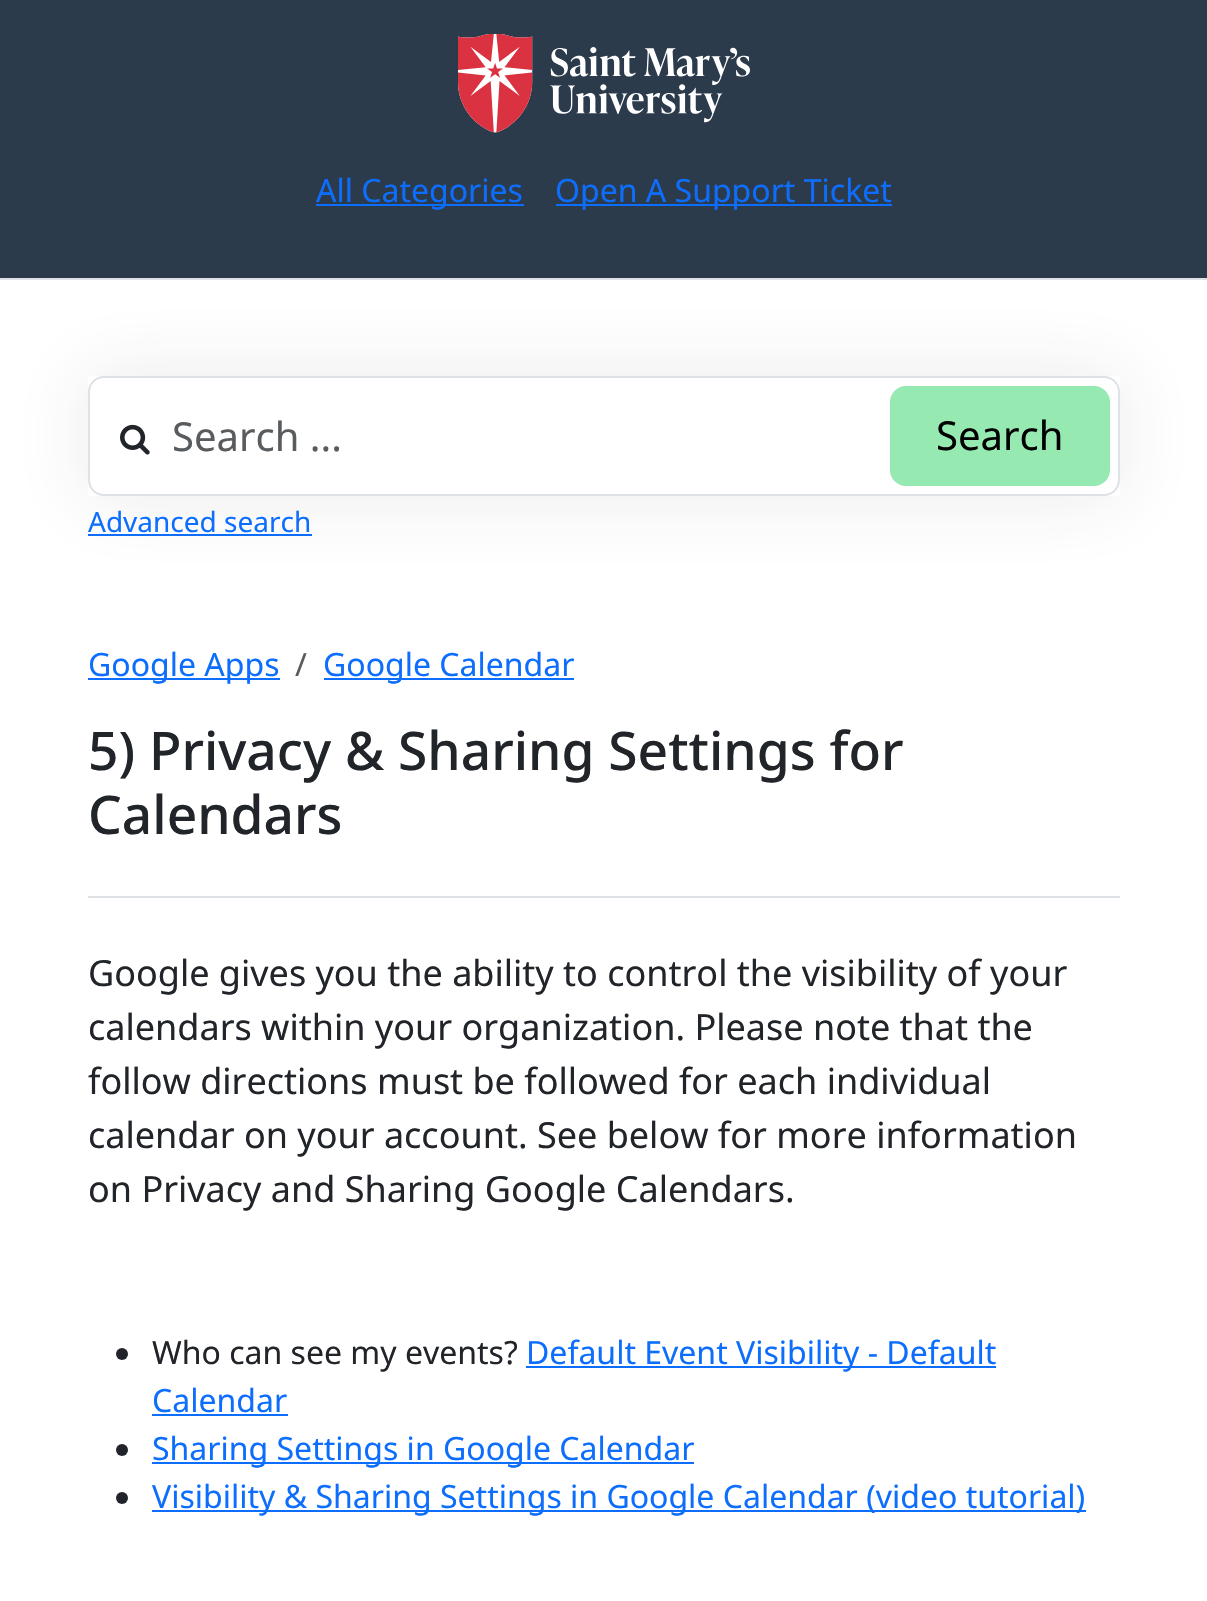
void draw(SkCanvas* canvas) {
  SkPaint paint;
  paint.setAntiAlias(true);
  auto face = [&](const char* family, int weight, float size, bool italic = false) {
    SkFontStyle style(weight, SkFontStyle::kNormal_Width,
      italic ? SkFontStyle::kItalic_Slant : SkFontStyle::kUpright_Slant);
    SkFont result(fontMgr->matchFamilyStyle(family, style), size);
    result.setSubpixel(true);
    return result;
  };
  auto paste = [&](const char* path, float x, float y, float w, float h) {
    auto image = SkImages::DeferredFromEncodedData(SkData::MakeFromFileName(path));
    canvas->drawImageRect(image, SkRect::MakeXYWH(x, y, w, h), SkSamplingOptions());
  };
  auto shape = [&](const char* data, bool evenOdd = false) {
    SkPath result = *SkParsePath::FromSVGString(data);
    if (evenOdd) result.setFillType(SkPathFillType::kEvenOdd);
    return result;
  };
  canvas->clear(0xffffffff);
  paint.setColor(0xff2b3b4c);
  canvas->drawRect(SkRect::MakeXYWH(0, 0, 1207, 278), paint);
  paint.setColor(0xffdee2e6);
  canvas->drawRect(SkRect::MakeXYWH(0, 278, 1207, 2), paint);
  paste("img/1.png", 458, 33, 292, 100);
  {
    const struct { float x, y, w, h; SkColor color; } items[] = {
      {316, 204, 208, 2, 0xff0d6efd},
      {556, 204, 336, 2, 0xff0d6efd},
      {88, 534, 224, 2, 0xff0d6efd},
    };
    for (auto [x, y, w, h, color] : items) {
      paint.setColor(color);
      canvas->drawRect(SkRect::MakeXYWH(x, y, w, h), paint);
    }
  }
  canvas->save();
  canvas->clipPath(shape("M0 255H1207V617H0ZM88 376H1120V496H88Z", true), true);
  paint.setColor(0x1a333333);
  paint.setMaskFilter(SkMaskFilter::MakeBlur(kNormal_SkBlurStyle, 40));
  canvas->drawRect(SkRect::MakeXYWH(88, 376, 1032, 120), paint);
  paint.setMaskFilter(nullptr);
  canvas->restore();
  paint.setStroke(true);
  paint.setStrokeWidth(2);
  paint.setColor(0xffdee2e6);
  canvas->drawRoundRect(SkRect::MakeXYWH(89, 377, 1030, 118), 15, 15, paint);
  paste("img/2.png", 120, 424, 30, 31);
  paint.setStroke(false);
  paint.setColor(0xff96e9b0);
  canvas->drawRoundRect(SkRect::MakeXYWH(891, 387, 218, 98), 15, 15, paint);
  paint.setStroke(true);
  canvas->drawRoundRect(SkRect::MakeXYWH(891, 387, 218, 98), 15, 15, paint);
  paint.setStroke(false);
  {
    const struct { float x, y, w, h; SkColor color; } items[] = {
      {88, 678, 192, 2, 0xff0d6efd},
      {324, 678, 250, 2, 0xff0d6efd},
      {88, 896, 1032, 2, 0xffdee2e6},
    };
    for (auto [x, y, w, h, color] : items) {
      paint.setColor(color);
      canvas->drawRect(SkRect::MakeXYWH(x, y, w, h), paint);
    }
  }
  paint.setColor(0xff212529);
  canvas->drawCircle(122, 1354, 6, paint);
  paint.setColor(0xff0d6efd);
  canvas->drawRect(SkRect::MakeXYWH(526, 1366, 470, 2), paint);
  canvas->drawRect(SkRect::MakeXYWH(152, 1414, 136, 2), paint);
  paint.setColor(0xff212529);
  canvas->drawCircle(122, 1450, 6, paint);
  paint.setColor(0xff0d6efd);
  canvas->drawRect(SkRect::MakeXYWH(152, 1462, 542, 2), paint);
  paint.setColor(0xff212529);
  canvas->drawCircle(122, 1498, 6, paint);
  paint.setColor(0xff0d6efd);
  canvas->drawRect(SkRect::MakeXYWH(152, 1510, 934, 2), paint);
  auto f0 = face("Noto Sans", 400, 32);
  canvas->drawString("All Categories", 316, 202, f0, paint);
  canvas->drawString("Open A Support Ticket", 555, 202, f0, paint);
  auto f1 = face("Noto Sans", 400, 40);
  paint.setColor(0xff595c5f);
  canvas->drawString("Search ...", 172, 451, f1, paint);
  paint.setColor(0xff000000);
  canvas->drawString("Search", 936, 450, f1, paint);
  auto f2 = face("Noto Sans", 400, 28);
  paint.setColor(0xff0d6efd);
  canvas->drawString("Advanced search", 88, 532, f2, paint);
  canvas->drawString("Google Apps", 88, 676, f0, paint);
  paint.setColor(0xff595c5f);
  canvas->drawString("/", 295, 676, f0, paint);
  paint.setColor(0xff0d6efd);
  canvas->drawString("Google Calendar", 323, 676, f0, paint);
  auto f3 = face("Noto Sans", 500, 53.25f);
  paint.setColor(0xff212529);
  canvas->drawString("5) Privacy & Sharing Settings for", 88, 770, f3, paint);
  canvas->drawString("Calendars", 88, 834, f3, paint);
  auto f4 = face("Noto Sans", 400, 36);
  {
    const struct { const char* s; float x, y; } items[] = {
      {"Google gives you the ability to control the visibility of your", 88, 986},
      {"calendars within your organization. Please note that the", 88, 1040},
      {"follow directions must be followed for each individual", 88, 1094},
      {"calendar on your account. See below for more information", 88, 1148},
      {"on Privacy and Sharing Google Calendars.", 88, 1202},
    };
    for (auto [s, x, y] : items) {
      canvas->drawString(s, x, y, f4, paint);
    }
  }
  canvas->drawString("Who can see my events?", 152, 1364, f0, paint);
  paint.setColor(0xff0d6efd);
  {
    const struct { const char* s; float x, y; } items[] = {
      {"Default Event Visibility - Default", 526, 1364},
      {"Calendar", 152, 1412},
      {"Sharing Settings in Google Calendar", 152, 1460},
      {"Visibility & Sharing Settings in Google Calendar (video tutorial)", 152, 1508},
    };
    for (auto [s, x, y] : items) {
      canvas->drawString(s, x, y, f0, paint);
    }
  }
}
